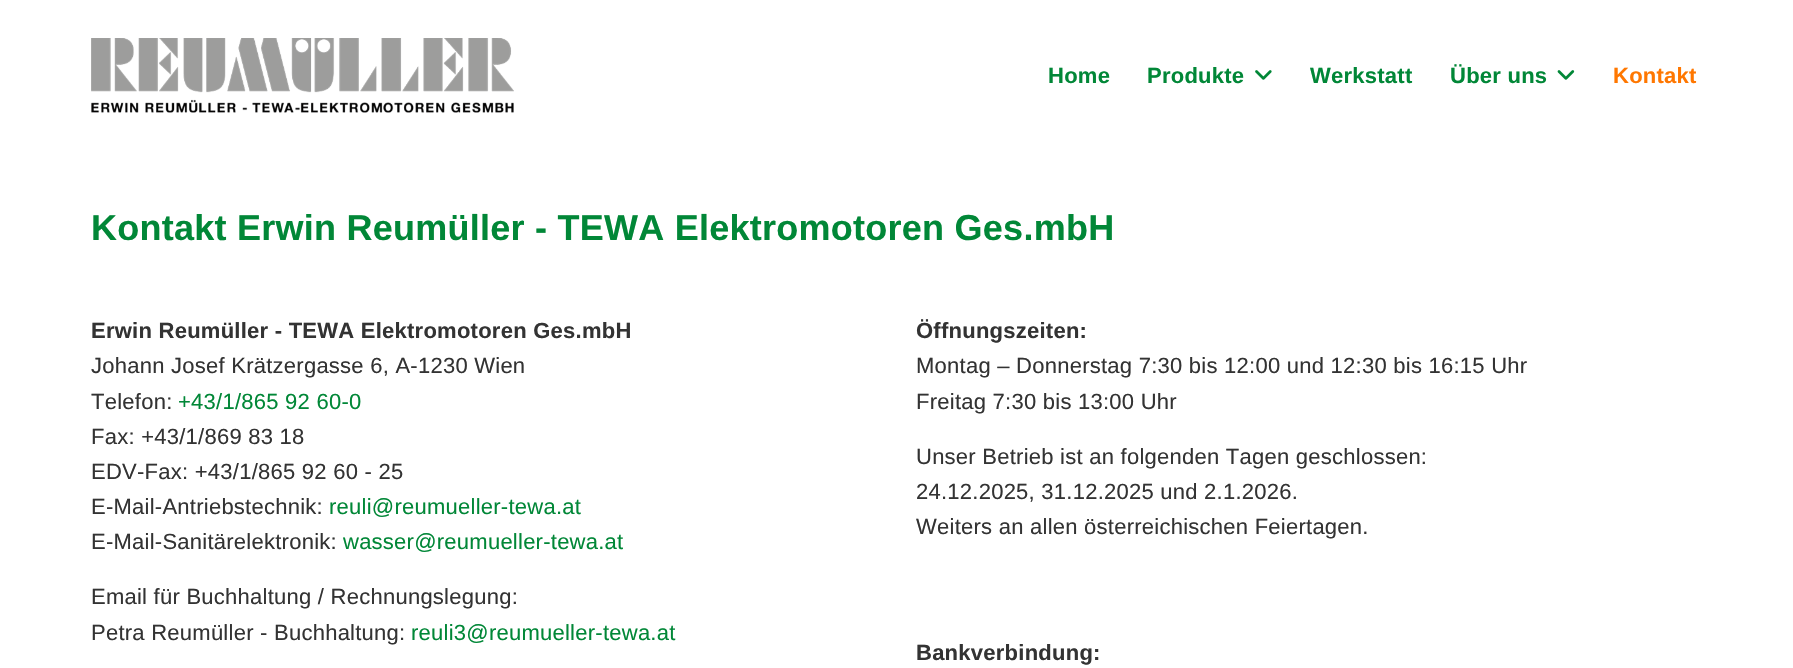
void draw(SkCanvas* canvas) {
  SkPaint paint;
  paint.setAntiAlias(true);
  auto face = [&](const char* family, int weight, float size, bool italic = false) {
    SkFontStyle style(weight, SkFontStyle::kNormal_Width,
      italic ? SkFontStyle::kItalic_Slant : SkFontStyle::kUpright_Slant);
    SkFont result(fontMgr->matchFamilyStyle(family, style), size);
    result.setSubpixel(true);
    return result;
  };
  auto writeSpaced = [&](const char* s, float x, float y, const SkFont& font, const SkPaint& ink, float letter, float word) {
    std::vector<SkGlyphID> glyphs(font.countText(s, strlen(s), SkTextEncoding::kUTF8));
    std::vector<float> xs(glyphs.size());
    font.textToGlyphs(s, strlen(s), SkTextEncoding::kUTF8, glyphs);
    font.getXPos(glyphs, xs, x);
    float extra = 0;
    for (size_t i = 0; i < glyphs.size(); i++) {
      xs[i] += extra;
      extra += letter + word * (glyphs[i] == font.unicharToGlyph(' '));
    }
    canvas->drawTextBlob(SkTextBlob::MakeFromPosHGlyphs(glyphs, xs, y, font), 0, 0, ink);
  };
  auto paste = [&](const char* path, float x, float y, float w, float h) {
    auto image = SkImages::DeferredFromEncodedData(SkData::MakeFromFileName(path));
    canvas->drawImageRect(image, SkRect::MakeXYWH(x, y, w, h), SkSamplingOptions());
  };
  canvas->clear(0xffffffff);
  paste("img/1.png", 91, 38, 423, 75);
  paste("img/2.png", 1255, 70, 17, 10);
  paste("img/3.png", 1557, 70, 18, 10);
  auto f0 = face("Liberation Sans", 700, 22);
  paint.setColor(0xff018737);
  {
    const struct { const char* s; float x, y; } items[] = {
      {"Home", 1048, 83},
      {"Produkte", 1147, 83},
      {"Werkstatt", 1310, 83},
      {"Über uns", 1450, 83},
    };
    for (auto [s, x, y] : items) {
      writeSpaced(s, x, y, f0, paint, 0.25f, 0);
    }
  }
  paint.setColor(0xffff7700);
  writeSpaced("Kontakt", 1613, 83, f0, paint, 0.25f, 0);
  auto f1 = face("Liberation Sans", 700, 36);
  paint.setColor(0xff018737);
  writeSpaced("Kontakt Erwin Reumüller - TEWA Elektromotoren Ges.mbH", 91, 240, f1, paint, 0.25f, 0);
  paint.setColor(0xff333333);
  writeSpaced("Erwin Reumüller - TEWA Elektromotoren Ges.mbH", 91, 338, f0, paint, 0.25f, 0);
  auto f2 = face("Liberation Sans", 400, 22);
  writeSpaced("Johann Josef Krätzergasse 6, A-1230 Wien", 91, 373, f2, paint, 0.25f, 0);
  writeSpaced("Telefon:", 91, 409, f2, paint, 0.25f, 0);
  paint.setColor(0xff018737);
  writeSpaced("+43/1/865 92 60-0", 178, 409, f2, paint, 0.25f, 0);
  paint.setColor(0xff333333);
  {
    const struct { const char* s; float x, y; } items[] = {
      {"Fax: +43/1/869 83 18", 91, 444},
      {"EDV-Fax: +43/1/865 92 60 - 25", 91, 479},
      {"E-Mail-Antriebstechnik:", 91, 514},
    };
    for (auto [s, x, y] : items) {
      writeSpaced(s, x, y, f2, paint, 0.25f, 0);
    }
  }
  paint.setColor(0xff018737);
  writeSpaced("reuli@reumueller-tewa.at", 329, 514, f2, paint, 0.25f, 0);
  paint.setColor(0xff333333);
  writeSpaced("E-Mail-Sanitärelektronik:", 91, 549, f2, paint, 0.25f, 0);
  paint.setColor(0xff018737);
  writeSpaced("wasser@reumueller-tewa.at", 343, 549, f2, paint, 0.25f, 0);
  paint.setColor(0xff333333);
  writeSpaced("Email für Buchhaltung / Rechnungslegung:", 91, 604, f2, paint, 0.25f, 0);
  writeSpaced("Petra Reumüller - Buchhaltung:", 91, 640, f2, paint, 0.25f, 0);
  paint.setColor(0xff018737);
  writeSpaced("reuli3@reumueller-tewa.at", 411, 640, f2, paint, 0.25f, 0);
  paint.setColor(0xff333333);
  writeSpaced("Öffnungszeiten:", 916, 338, f0, paint, 0.25f, 0);
  {
    const struct { const char* s; float x, y; } items[] = {
      {"Montag – Donnerstag 7:30 bis 12:00 und 12:30 bis 16:15 Uhr", 916, 373},
      {"Freitag 7:30 bis 13:00 Uhr", 916, 409},
      {"Unser Betrieb ist an folgenden Tagen geschlossen:", 916, 464},
      {"24.12.2025, 31.12.2025 und 2.1.2026.", 916, 499},
      {"Weiters an allen österreichischen Feiertagen.", 916, 534},
    };
    for (auto [s, x, y] : items) {
      writeSpaced(s, x, y, f2, paint, 0.25f, 0);
    }
  }
  writeSpaced("Bankverbindung:", 916, 660, f0, paint, 0.25f, 0);
}
